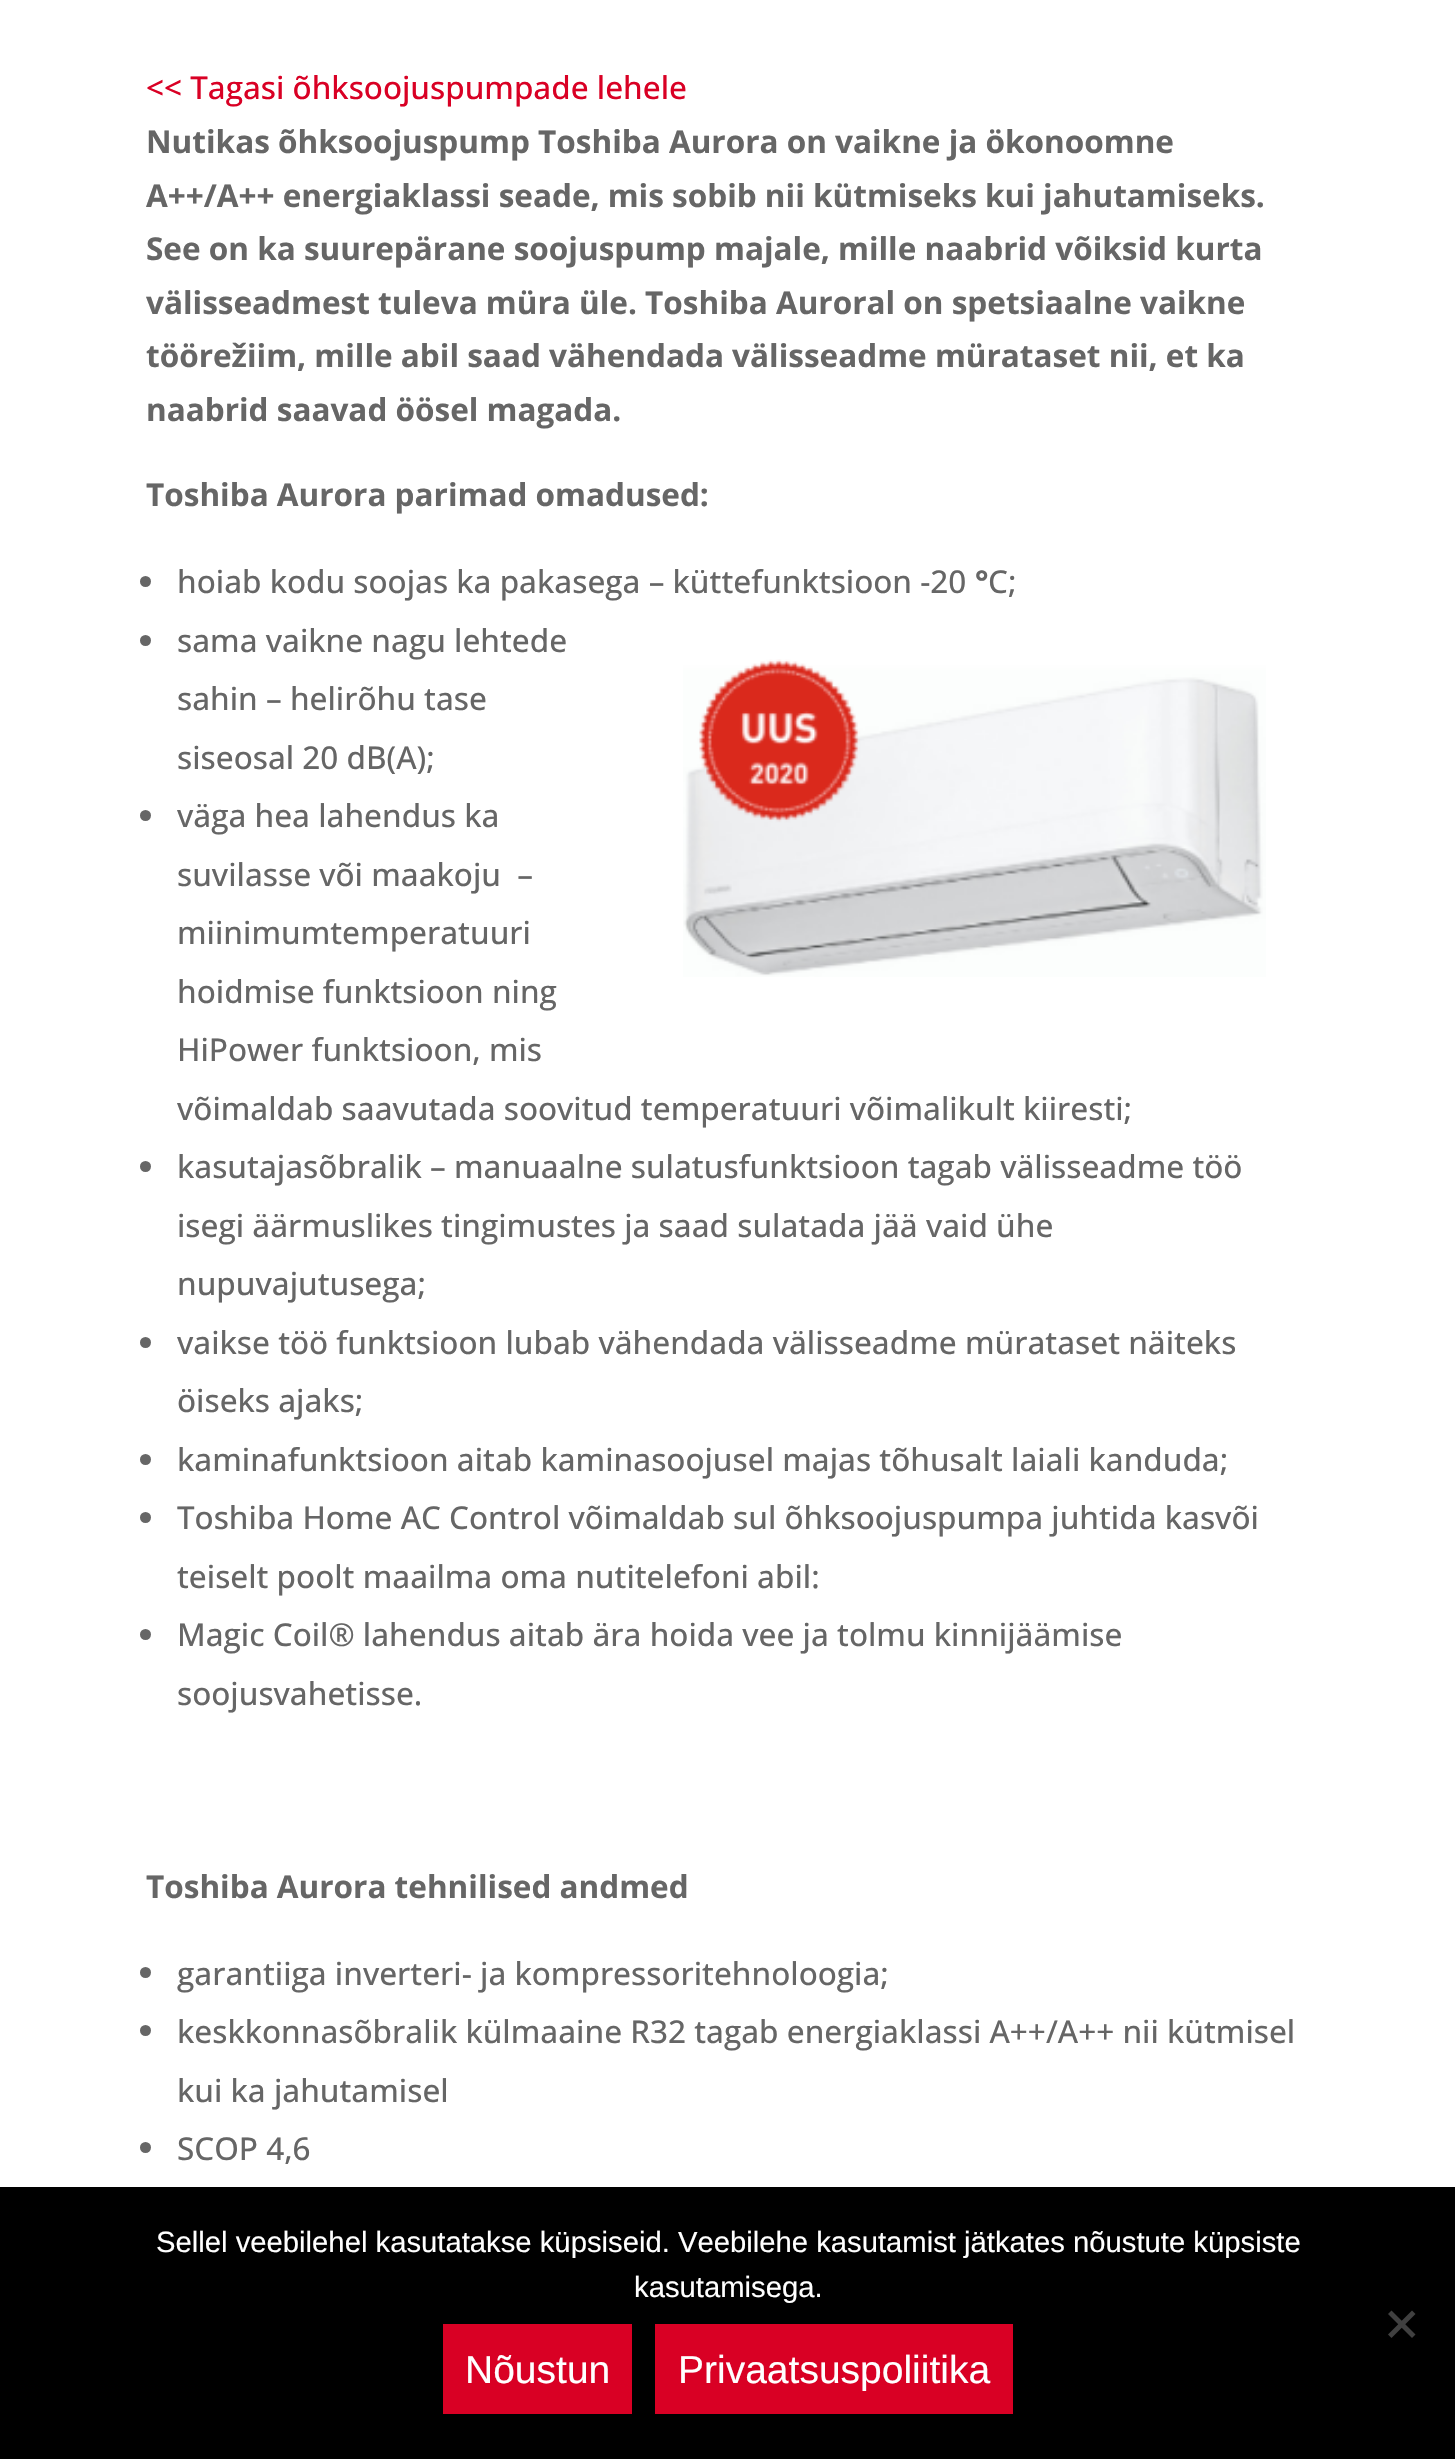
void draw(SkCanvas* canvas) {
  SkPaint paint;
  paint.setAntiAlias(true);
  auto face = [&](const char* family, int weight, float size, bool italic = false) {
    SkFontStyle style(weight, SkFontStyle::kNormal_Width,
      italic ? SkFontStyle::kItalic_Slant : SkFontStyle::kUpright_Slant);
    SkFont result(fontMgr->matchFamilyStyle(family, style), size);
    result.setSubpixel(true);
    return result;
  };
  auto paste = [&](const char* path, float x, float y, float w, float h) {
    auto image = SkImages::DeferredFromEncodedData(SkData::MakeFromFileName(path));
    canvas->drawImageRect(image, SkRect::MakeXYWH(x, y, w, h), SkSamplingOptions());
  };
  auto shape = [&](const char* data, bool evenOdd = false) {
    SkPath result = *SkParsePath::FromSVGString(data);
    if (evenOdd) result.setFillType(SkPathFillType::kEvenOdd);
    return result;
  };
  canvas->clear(0xffffffff);
  paint.setColor(0xff666666);
  canvas->drawCircle(145.5f, 581.5f, 5.5f, paint);
  paste("img/1.png", 683, 659, 583, 318);
  canvas->drawCircle(145.5f, 640.5f, 5.5f, paint);
  canvas->drawCircle(145.5f, 815.5f, 5.5f, paint);
  canvas->drawCircle(145.5f, 1166.5f, 5.5f, paint);
  canvas->drawCircle(145.5f, 1342.5f, 5.5f, paint);
  canvas->drawCircle(145.5f, 1459.5f, 5.5f, paint);
  canvas->drawCircle(145.5f, 1517.5f, 5.5f, paint);
  canvas->drawCircle(145.5f, 1634.5f, 5.5f, paint);
  canvas->drawCircle(145.5f, 1972.5f, 5.5f, paint);
  canvas->drawCircle(145.5f, 2030.5f, 5.5f, paint);
  canvas->drawCircle(145.5f, 2147.5f, 5.5f, paint);
  paint.setColor(0xff000000);
  canvas->drawRect(SkRect::MakeXYWH(0, 2187, 1455, 272), paint);
  paint.setColor(0xff404040);
  canvas->drawPath(shape("M1412 2310.5L1415.5 2314L1391.5 2338L1388 2334.5Z"), paint);
  canvas->drawPath(shape("M1388 2314L1391.5 2310.5L1415.5 2334.5L1412 2338Z"), paint);
  paint.setColor(0xffd90024);
  canvas->drawRect(SkRect::MakeXYWH(443, 2324, 189, 90), paint);
  canvas->drawRect(SkRect::MakeXYWH(655, 2324, 358, 90), paint);
  auto f0 = face("Open Sans", 500, 31.5f);
  canvas->drawString("<< Tagasi õhksoojuspumpade lehele", 146, 99, f0, paint);
  auto f1 = face("Open Sans", 700, 31.5f);
  paint.setColor(0xff666666);
  {
    const struct { const char* s; float x, y; } items[] = {
      {"Nutikas õhksoojuspump Toshiba Aurora on vaikne ja ökonoomne", 146, 153},
      {"A++/A++ energiaklassi seade, mis sobib nii kütmiseks kui jahutamiseks.", 146, 207},
      {"See on ka suurepärane soojuspump majale, mille naabrid võiksid kurta", 146, 260},
      {"välisseadmest tuleva müra üle. Toshiba Auroral on spetsiaalne vaikne", 146, 314},
      {"töörežiim, mille abil saad vähendada välisseadme mürataset nii, et ka", 146, 367},
      {"naabrid saavad öösel magada.", 146, 421},
      {"Toshiba Aurora parimad omadused:", 146, 506},
    };
    for (auto [s, x, y] : items) {
      canvas->drawString(s, x, y, f1, paint);
    }
  }
  canvas->drawString("hoiab kodu soojas ka pakasega – küttefunktsioon -20", 177, 593, f0, paint);
  canvas->drawString("°", 975, 593, f1, paint);
  {
    const struct { const char* s; float x, y; } items[] = {
      {"C;", 988, 593},
      {"sama vaikne nagu lehtede", 177, 652},
      {"sahin – helirõhu tase", 177, 710},
      {"siseosal 20 dB(A);", 177, 769},
      {"väga hea lahendus ka", 177, 827},
      {"suvilasse või maakoju  –", 177, 886},
      {"miinimumtemperatuuri", 177, 944},
      {"hoidmise funktsioon ning", 177, 1003},
      {"HiPower funktsioon, mis", 177, 1061},
      {"võimaldab saavutada soovitud temperatuuri võimalikult kiiresti;", 177, 1120},
      {"kasutajasõbralik – manuaalne sulatusfunktsioon tagab välisseadme töö", 177, 1178},
      {"isegi äärmuslikes tingimustes ja saad sulatada jää vaid ühe", 177, 1237},
      {"nupuvajutusega;", 177, 1295},
      {"vaikse töö funktsioon lubab vähendada välisseadme mürataset näiteks", 177, 1354},
      {"öiseks ajaks;", 177, 1412},
      {"kaminafunktsioon aitab kaminasoojusel majas tõhusalt laiali kanduda;", 177, 1471},
      {"Toshiba Home AC Control võimaldab sul õhksoojuspumpa juhtida kasvõi", 177, 1529},
      {"teiselt poolt maailma oma nutitelefoni abil:", 177, 1588},
      {"Magic Coil® lahendus aitab ära hoida vee ja tolmu kinnijäämise", 177, 1646},
      {"soojusvahetisse.", 177, 1705},
    };
    for (auto [s, x, y] : items) {
      canvas->drawString(s, x, y, f0, paint);
    }
  }
  canvas->drawString("Toshiba Aurora tehnilised andmed", 146, 1898, f1, paint);
  {
    const struct { const char* s; float x, y; } items[] = {
      {"garantiiga inverteri- ja kompressoritehnoloogia;", 177, 1985},
      {"keskkonnasõbralik külmaaine R32 tagab energiaklassi A++/A++ nii kütmisel", 177, 2043},
      {"kui ka jahutamisel", 177, 2102},
      {"SCOP 4,6", 177, 2160},
    };
    for (auto [s, x, y] : items) {
      canvas->drawString(s, x, y, f0, paint);
    }
  }
  auto f2 = face("Liberation Sans", 400, 29.25f);
  paint.setColor(0xffffffff);
  canvas->drawString("Sellel veebilehel kasutatakse küpsiseid. Veebilehe kasutamist jätkates nõustute küpsiste", 156, 2252, f2, paint);
  canvas->drawString("kasutamisega.", 634, 2297, f2, paint);
  auto f3 = face("Liberation Sans", 400, 39);
  canvas->drawString("Nõustun", 465, 2383, f3, paint);
  canvas->drawString("Privaatsuspoliitika", 678, 2383, f3, paint);
}
